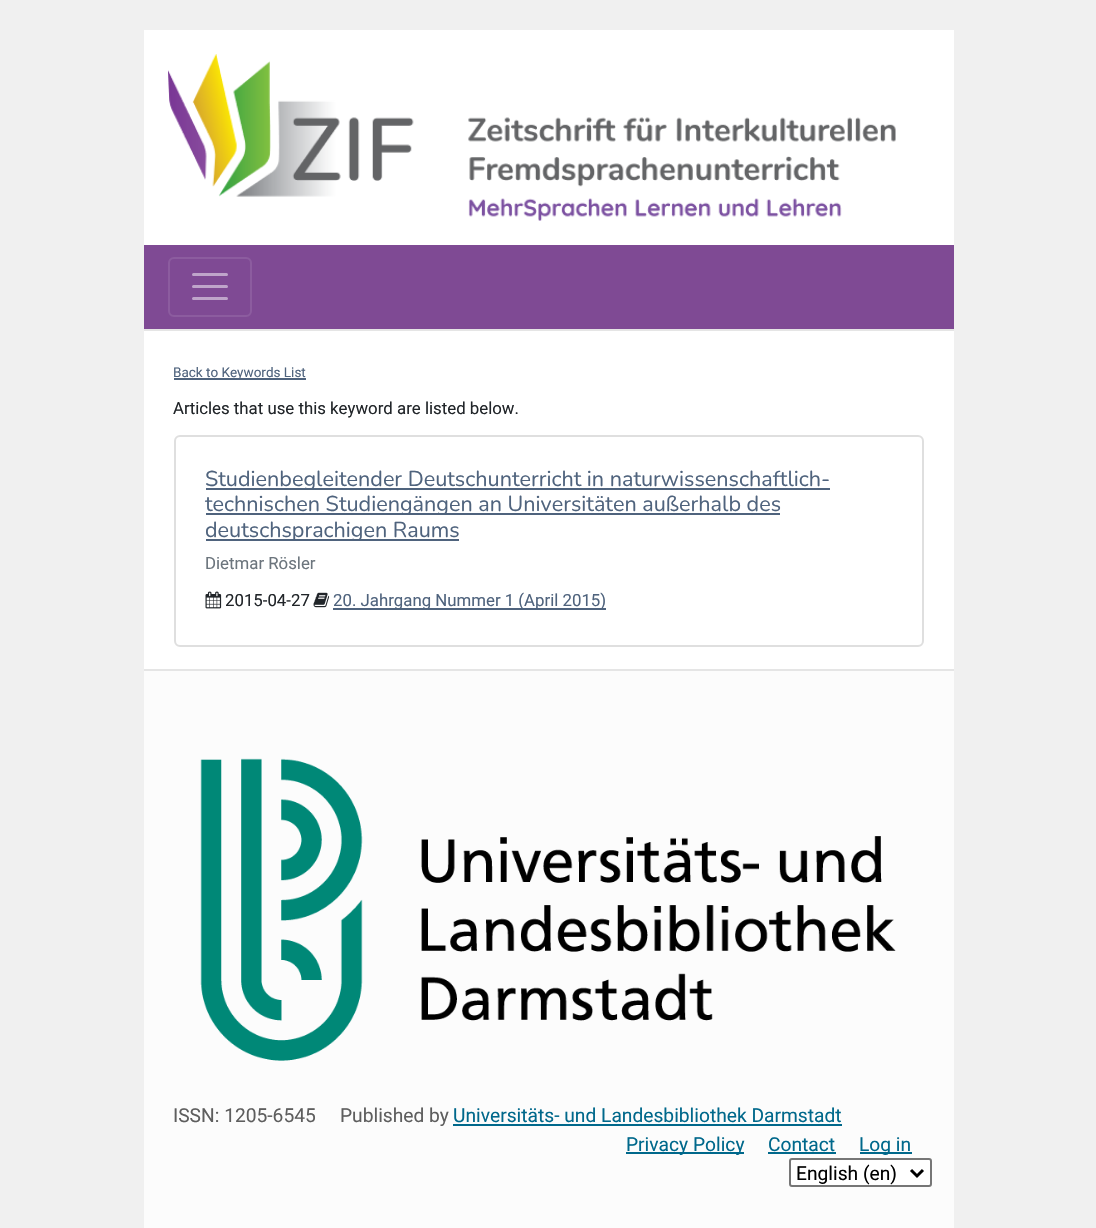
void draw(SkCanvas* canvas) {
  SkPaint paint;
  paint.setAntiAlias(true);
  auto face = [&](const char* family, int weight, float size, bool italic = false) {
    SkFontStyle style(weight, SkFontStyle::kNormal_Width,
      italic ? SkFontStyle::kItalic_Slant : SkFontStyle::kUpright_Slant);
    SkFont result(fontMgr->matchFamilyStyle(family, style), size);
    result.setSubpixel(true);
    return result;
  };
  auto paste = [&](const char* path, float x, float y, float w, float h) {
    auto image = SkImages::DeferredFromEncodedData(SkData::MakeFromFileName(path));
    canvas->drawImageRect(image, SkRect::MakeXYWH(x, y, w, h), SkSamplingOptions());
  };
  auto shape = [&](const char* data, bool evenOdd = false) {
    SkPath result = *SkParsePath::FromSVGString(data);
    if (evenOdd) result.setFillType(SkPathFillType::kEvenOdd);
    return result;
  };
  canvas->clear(0xfff0f0f0);
  paint.setColor(0xffffffff);
  canvas->drawRect(SkRect::MakeXYWH(144, 30, 810, 639), paint);
  paint.setColor(0xffe5e5e5);
  canvas->drawRect(SkRect::MakeXYWH(144, 329, 810, 2), paint);
  paste("img/1.png", 168, 54, 728, 167);
  paint.setColor(0xff7f4a94);
  canvas->drawRect(SkRect::MakeXYWH(144, 245, 810, 84), paint);
  paint.setStroke(true);
  paint.setStrokeWidth(2);
  paint.setColor(0xff8c5c9f);
  canvas->drawRoundRect(SkRect::MakeXYWH(169, 258, 82, 58), 5, 5, paint);
  paint.setStrokeWidth(3);
  paint.setStrokeCap(SkPaint::kRound_Cap);
  paint.setColor(0xffbfa5ca);
  canvas->drawPath(shape("M193.5 274.5H226.5M193.5 286.5H226.5M193.5 298.5H226.5"), paint);
  paint.setStroke(false);
  paint.setColor(0xff4f637d);
  canvas->drawRect(SkRect::MakeXYWH(174, 378, 132, 2), paint);
  paint.setStroke(true);
  paint.setStrokeWidth(2);
  paint.setStrokeCap(SkPaint::kButt_Cap);
  paint.setColor(0xffdfdfdf);
  canvas->drawRoundRect(SkRect::MakeXYWH(175, 436, 748, 210), 5, 5, paint);
  paint.setStroke(false);
  {
    const struct { float x, y, w, h; SkColor color; } items[] = {
      {206, 488, 624, 2, 0xff4f637d},
      {206, 513, 574, 2, 0xff4f637d},
      {206, 539, 253, 2, 0xff4f637d},
    };
    for (auto [x, y, w, h, color] : items) {
      paint.setColor(color);
      canvas->drawRect(SkRect::MakeXYWH(x, y, w, h), paint);
    }
  }
  paste("img/2.png", 205, 591, 17, 18);
  paste("img/3.png", 313, 592, 17, 16);
  {
    const struct { float x, y, w, h; SkColor color; } items[] = {
      {333, 608, 273, 2, 0xff4f637d},
      {144, 671, 810, 557, 0xfffcfcfc},
      {144, 669, 810, 2, 0xffe5e5e5},
    };
    for (auto [x, y, w, h, color] : items) {
      paint.setColor(color);
      canvas->drawRect(SkRect::MakeXYWH(x, y, w, h), paint);
    }
  }
  paste("img/4.png", 200, 758, 696, 303);
  {
    const struct { float x, y, w, h; SkColor color; } items[] = {
      {453, 1124, 389, 2, 0xff00688b},
      {626, 1152, 118, 2, 0xff00688b},
      {768, 1152, 68, 2, 0xff00688b},
      {860, 1152, 52, 2, 0xff00688b},
    };
    for (auto [x, y, w, h, color] : items) {
      paint.setColor(color);
      canvas->drawRect(SkRect::MakeXYWH(x, y, w, h), paint);
    }
  }
  paint.setColor(0xffffffff);
  canvas->drawRoundRect(SkRect::MakeXYWH(790, 1159, 141, 27), 2, 2, paint);
  paint.setStroke(true);
  paint.setColor(0xff767676);
  canvas->drawRoundRect(SkRect::MakeXYWH(790, 1159, 141, 27), 2, 2, paint);
  paint.setStrokeWidth(3);
  paint.setColor(0xff000000);
  canvas->drawPath(shape("M911 1170L917 1176L923 1170"), paint);
  auto f0 = face("Roboto", 400, 13.5f);
  paint.setStroke(false);
  paint.setColor(0xff4f637d);
  canvas->drawString("Back to Keywords List", 173, 377, f0, paint);
  auto f1 = face("Roboto", 400, 16.8f);
  paint.setColor(0xff212529);
  canvas->drawString("Articles that use this keyword are listed below.", 173, 414, f1, paint);
  auto f2 = face("Nunito", 200, 21.6f);
  paint.setColor(0xff4f637d);
  {
    const struct { const char* s; float x, y; } items[] = {
      {"Studienbegleitender Deutschunterricht in naturwissenschaftlich-", 205, 486},
      {"technischen Studiengängen an Universitäten außerhalb des", 205, 511},
      {"deutschsprachigen Raums", 205, 537},
    };
    for (auto [s, x, y] : items) {
      canvas->drawString(s, x, y, f2, paint);
    }
  }
  paint.setColor(0xff6c757d);
  canvas->drawString("Dietmar Rösler", 205, 569, f1, paint);
  paint.setColor(0xff212529);
  canvas->drawString("2015-04-27", 225, 606, f1, paint);
  paint.setColor(0xff4f637d);
  canvas->drawString("20. Jahrgang Nummer 1 (April 2015)", 333, 606, f1, paint);
  auto f3 = face("Roboto", 400, 19.2f);
  paint.setColor(0xff5e5e5e);
  canvas->drawString("ISSN: 1205-6545", 173, 1122, f3, paint);
  canvas->drawString("Published by", 340, 1122, f3, paint);
  paint.setColor(0xff00688b);
  {
    const struct { const char* s; float x, y; } items[] = {
      {"Universitäts- und Landesbibliothek Darmstadt", 453, 1122},
      {"Privacy Policy", 626, 1151},
      {"Contact", 768, 1151},
      {"Log in", 859, 1151},
    };
    for (auto [s, x, y] : items) {
      canvas->drawString(s, x, y, f3, paint);
    }
  }
  paint.setColor(0xff000000);
  canvas->drawString("English (en)", 796, 1180, f3, paint);
}
